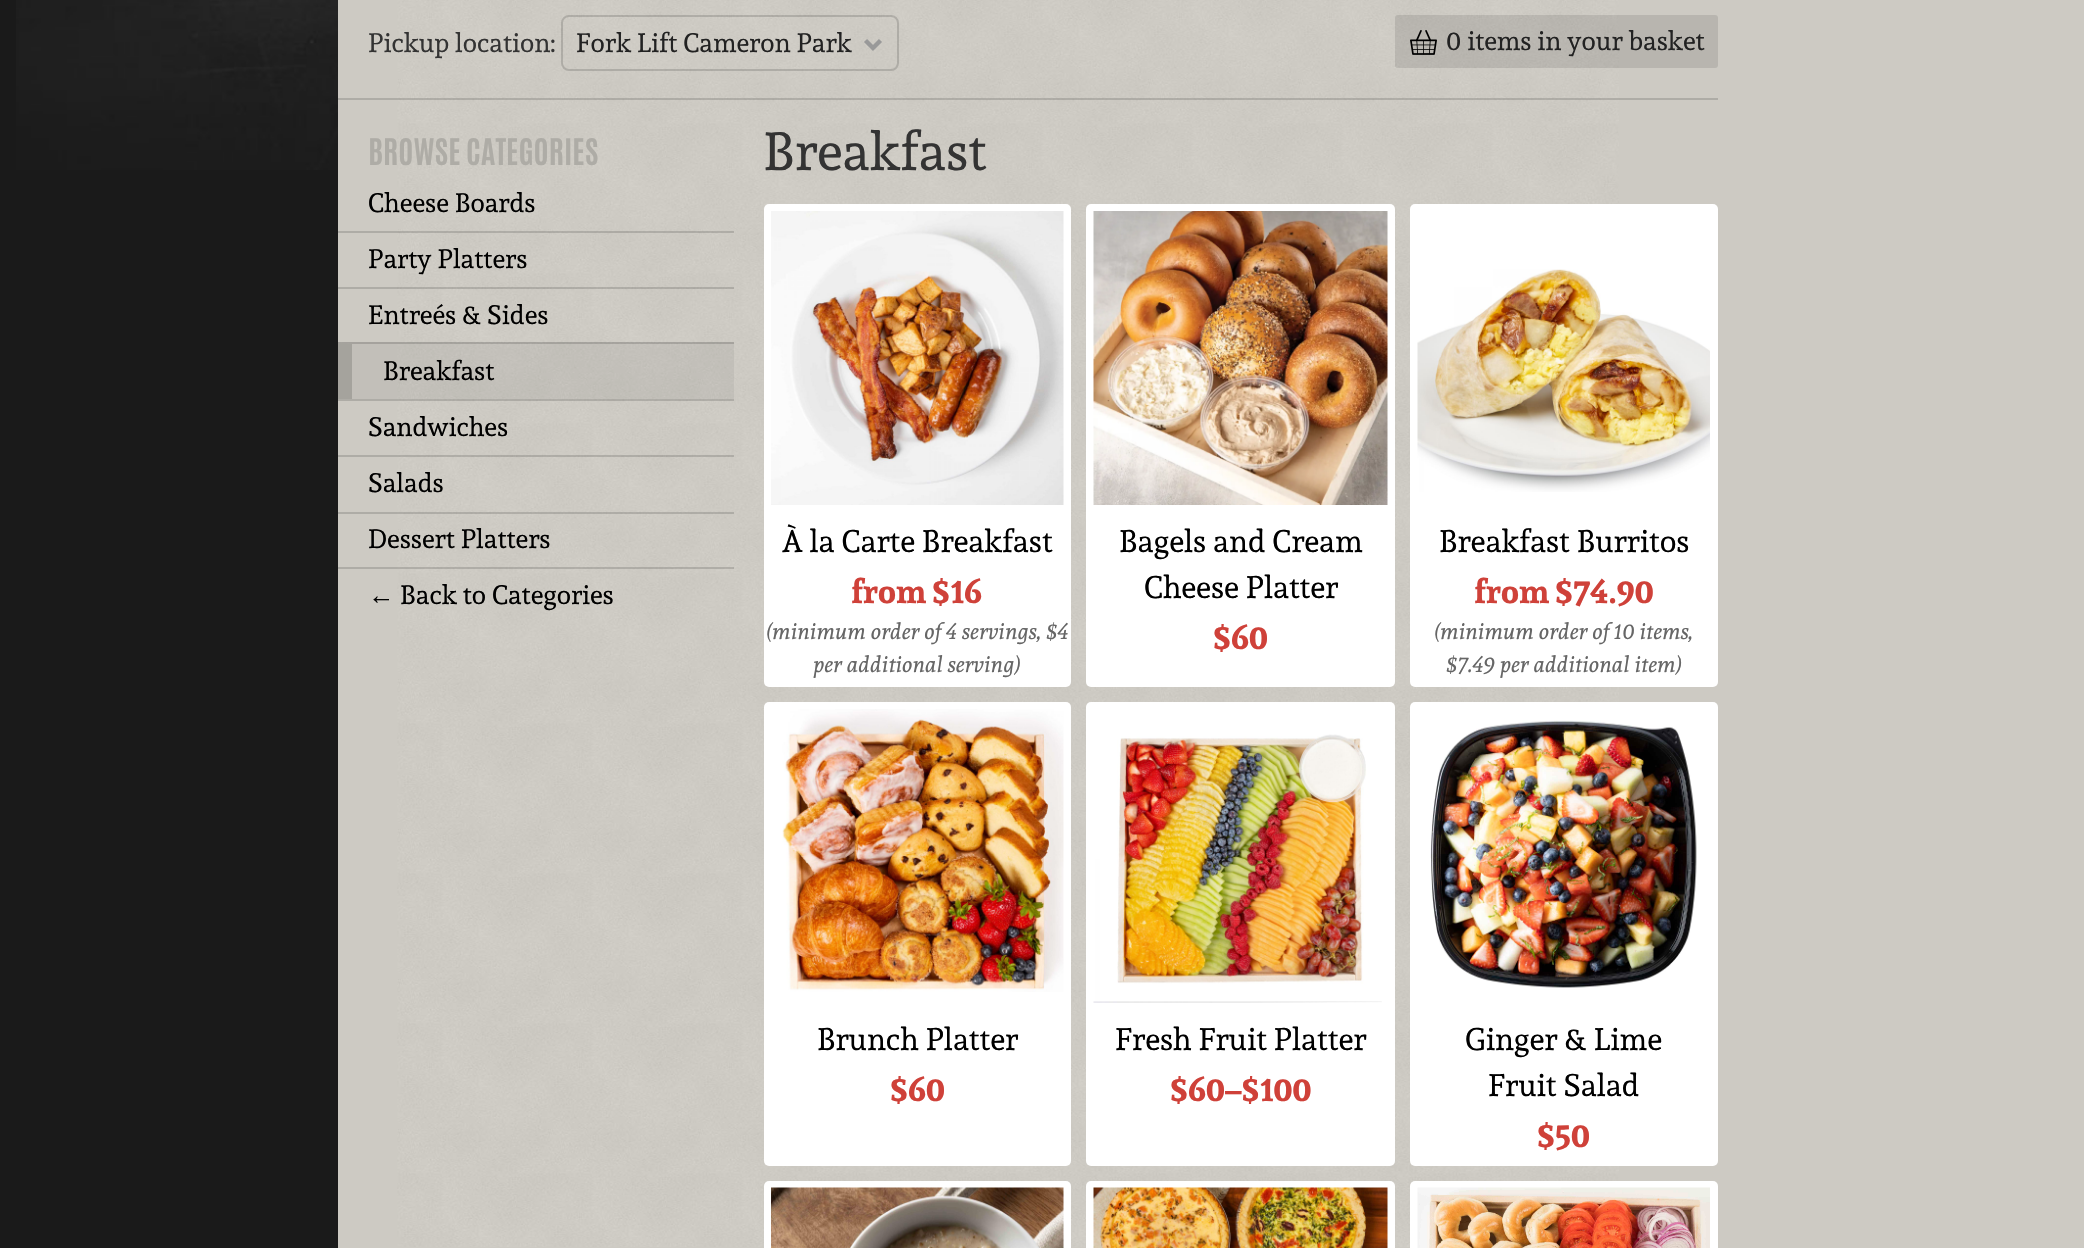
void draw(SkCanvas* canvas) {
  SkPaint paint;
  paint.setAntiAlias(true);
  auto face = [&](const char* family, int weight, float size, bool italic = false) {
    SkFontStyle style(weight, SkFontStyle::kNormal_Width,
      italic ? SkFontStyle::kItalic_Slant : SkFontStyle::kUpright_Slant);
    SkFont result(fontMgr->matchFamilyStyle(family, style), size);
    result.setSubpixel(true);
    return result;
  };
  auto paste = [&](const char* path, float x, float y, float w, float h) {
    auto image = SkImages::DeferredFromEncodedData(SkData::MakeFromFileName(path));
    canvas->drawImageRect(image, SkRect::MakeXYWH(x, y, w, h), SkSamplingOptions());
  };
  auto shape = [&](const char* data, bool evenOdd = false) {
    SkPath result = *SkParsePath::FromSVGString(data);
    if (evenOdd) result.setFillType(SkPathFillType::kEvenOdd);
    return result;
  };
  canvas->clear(0xff1a1a1a);
  paste("img/1.png", 16, 0, 322, 170);
  paint.setColor(0xffcdcac3);
  canvas->drawRect(SkRect::MakeXYWH(338, 0, 1746, 1248), paint);
  paste("img/2.png", 397, 0, 1222, 1247);
  paint.setColor(0x26000000);
  canvas->drawRect(SkRect::MakeXYWH(338, 98, 1380, 2), paint);
  paint.setStroke(true);
  paint.setStrokeWidth(4.4f);
  paint.setColor(0xff999999);
  canvas->drawPath(shape("M865.5 40.5L873 48L880.5 40.5"), paint);
  paint.setStrokeWidth(2);
  paint.setColor(0x26000000);
  canvas->drawRoundRect(SkRect::MakeXYWH(562, 16, 336, 54), 7, 7, paint);
  paint.setStroke(false);
  paint.setColor(0x1a000000);
  canvas->drawRoundRect(SkRect::MakeXYWH(1395, 15, 323, 53), 3, 3, paint);
  paste("img/3.png", 1410, 30, 27, 25);
  {
    const struct { float x, y, w, h; SkColor color; } items[] = {
      {338, 231, 396, 2, 0x26000000},
      {338, 287, 396, 2, 0x26000000},
      {338, 342, 396, 57, 0x0d000000},
    };
    for (auto [x, y, w, h, color] : items) {
      paint.setColor(color);
      canvas->drawRect(SkRect::MakeXYWH(x, y, w, h), paint);
    }
  }
  paint.setColor(0x26000000);
  canvas->drawPath(shape("M338 342H734V344H352Z"), paint);
  canvas->drawPath(shape("M338 399V342L352 344V399Z"), paint);
  {
    const struct { float x, y, w, h; SkColor color; } items[] = {
      {338, 399, 396, 2, 0x26000000},
      {338, 455, 396, 2, 0x26000000},
      {338, 512, 396, 2, 0x26000000},
      {338, 567, 396, 2, 0x26000000},
    };
    for (auto [x, y, w, h, color] : items) {
      paint.setColor(color);
      canvas->drawRect(SkRect::MakeXYWH(x, y, w, h), paint);
    }
  }
  paint.setColor(0xffffffff);
  canvas->drawRoundRect(SkRect::MakeXYWH(764, 204, 307, 483), 5, 5, paint);
  paste("img/4.png", 771, 211, 293, 294);
  canvas->drawRoundRect(SkRect::MakeXYWH(1086, 204, 309, 483), 5, 5, paint);
  paste("img/5.png", 1093, 211, 295, 294);
  canvas->drawRoundRect(SkRect::MakeXYWH(1410, 204, 308, 483), 5, 5, paint);
  paste("img/6.png", 1417, 269, 293, 223);
  canvas->drawRoundRect(SkRect::MakeXYWH(764, 702, 307, 464), 5, 5, paint);
  paste("img/7.png", 782, 709, 282, 283);
  canvas->drawRoundRect(SkRect::MakeXYWH(1086, 702, 309, 464), 5, 5, paint);
  paste("img/8.png", 1093, 734, 289, 269);
  canvas->drawRoundRect(SkRect::MakeXYWH(1410, 702, 308, 464), 5, 5, paint);
  paste("img/9.png", 1430, 720, 267, 268);
  canvas->drawRoundRect(SkRect::MakeXYWH(764, 1181, 307, 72), 5, 5, paint);
  paste("img/10.png", 771, 1187, 293, 61);
  canvas->drawRoundRect(SkRect::MakeXYWH(1086, 1181, 309, 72), 5, 5, paint);
  paste("img/11.png", 1093, 1187, 295, 61);
  canvas->drawRoundRect(SkRect::MakeXYWH(1410, 1181, 308, 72), 5, 5, paint);
  paste("img/12.png", 1417, 1187, 293, 61);
  auto f0 = face("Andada", 400, 26.4f);
  paint.setColor(0xff333333);
  canvas->drawString("Pickup location:", 368, 52, f0, paint);
  paint.setColor(0xff222222);
  canvas->drawString("Fork Lift Cameron Park", 576, 52, f0, paint);
  canvas->drawString("0 items in your basket", 1446, 50, f0, paint);
  auto f1 = face("Antonio", 700, 31);
  paint.setColor(0xffaeaca6);
  canvas->drawString("BROWSE CATEGORIES", 368, 165, f1, paint);
  paint.setColor(0xff000000);
  {
    const struct { const char* s; float x, y; } items[] = {
      {"Cheese Boards", 368, 212},
      {"Party Platters", 368, 268},
      {"Entreés & Sides", 368, 324},
      {"Breakfast", 383, 380},
      {"Sandwiches", 368, 436},
      {"Salads", 368, 492},
      {"Dessert Platters", 368, 548},
    };
    for (auto [s, x, y] : items) {
      canvas->drawString(s, x, y, f0, paint);
    }
  }
  auto f2 = face("Liberation Serif", 400, 26.4f);
  canvas->drawString("←", 368, 604, f2, paint);
  canvas->drawString("Back to Categories", 400, 604, f0, paint);
  auto f3 = face("Andada", 400, 53);
  paint.setColor(0xff333333);
  canvas->drawString("Breakfast", 763, 170, f3, paint);
  auto f4 = face("Andada", 400, 31);
  paint.setColor(0xff000000);
  canvas->drawString("À la Carte Breakfast", 782, 552, f4, paint);
  auto f5 = face("Andada", 700, 33);
  paint.setColor(0xffcf4139);
  canvas->drawString("from $16", 851, 603, f5, paint);
  auto f6 = face("Andada", 400, 22, true);
  paint.setColor(0xff666666);
  canvas->drawString("(minimum order of 4 servings, $4", 766, 639, f6, paint);
  canvas->drawString("per additional serving)", 813, 672, f6, paint);
  paint.setColor(0xff000000);
  canvas->drawString("Bagels and Cream", 1119, 552, f4, paint);
  canvas->drawString("Cheese Platter", 1144, 598, f4, paint);
  paint.setColor(0xffcf4139);
  canvas->drawString("$60", 1213, 649, f5, paint);
  paint.setColor(0xff000000);
  canvas->drawString("Breakfast Burritos", 1439, 552, f4, paint);
  paint.setColor(0xffcf4139);
  canvas->drawString("from $74.90", 1474, 603, f5, paint);
  paint.setColor(0xff666666);
  canvas->drawString("(minimum order of 10 items,", 1434, 639, f6, paint);
  canvas->drawString("$7.49 per additional item)", 1446, 672, f6, paint);
  paint.setColor(0xff000000);
  canvas->drawString("Brunch Platter", 817, 1050, f4, paint);
  paint.setColor(0xffcf4139);
  canvas->drawString("$60", 890, 1101, f5, paint);
  paint.setColor(0xff000000);
  canvas->drawString("Fresh Fruit Platter", 1115, 1050, f4, paint);
  paint.setColor(0xffcf4139);
  canvas->drawString("$60–$100", 1170, 1101, f5, paint);
  paint.setColor(0xff000000);
  canvas->drawString("Ginger & Lime", 1465, 1050, f4, paint);
  canvas->drawString("Fruit Salad", 1488, 1096, f4, paint);
  paint.setColor(0xffcf4139);
  canvas->drawString("$50", 1537, 1147, f5, paint);
}
